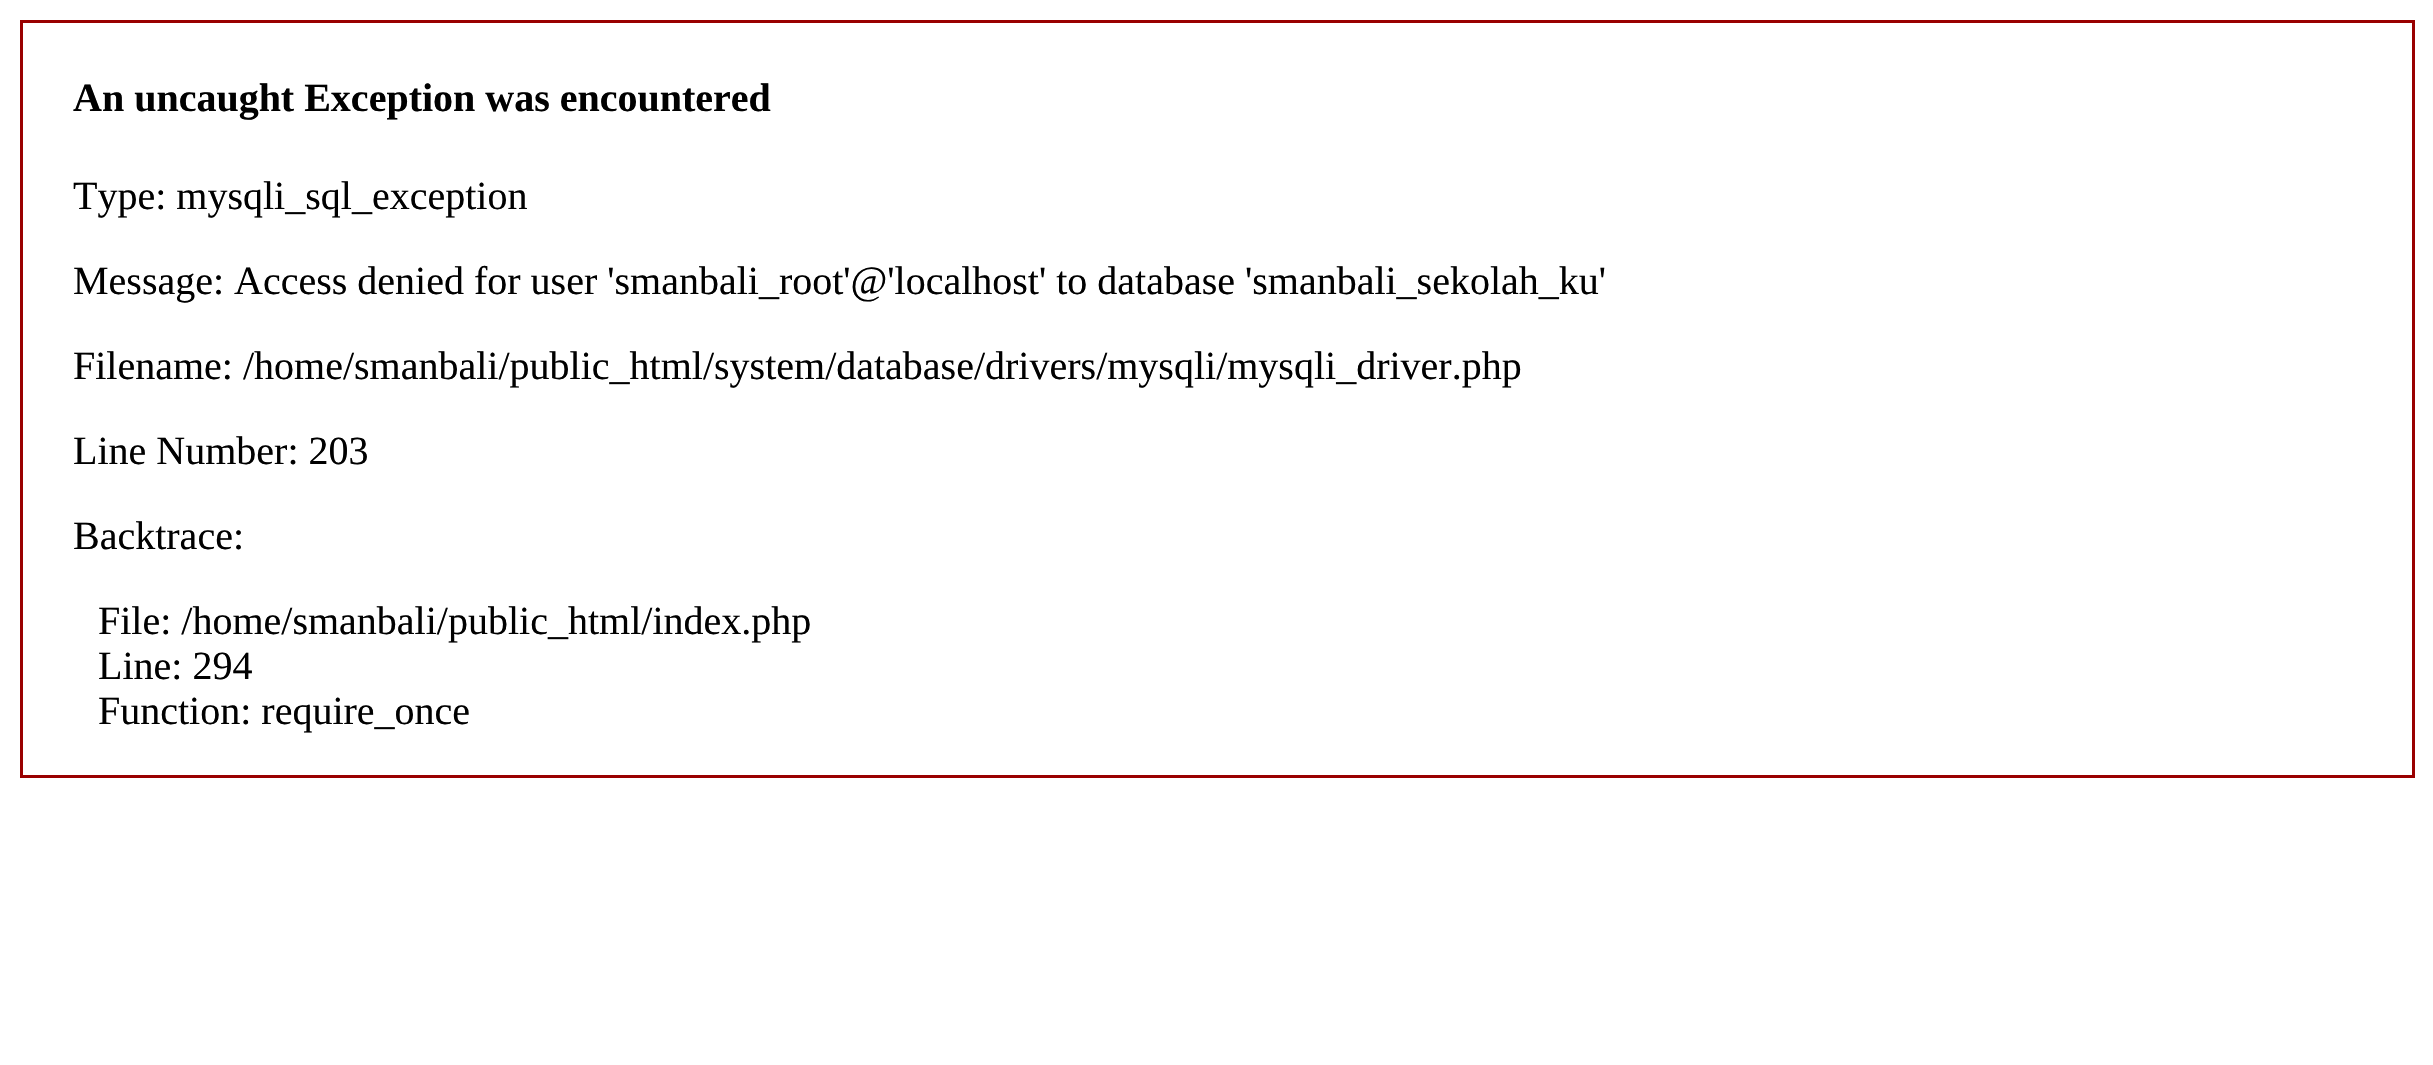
void draw(SkCanvas* canvas) {
  SkPaint paint;
  paint.setAntiAlias(true);
  auto face = [&](const char* family, int weight, float size, bool italic = false) {
    SkFontStyle style(weight, SkFontStyle::kNormal_Width,
      italic ? SkFontStyle::kItalic_Slant : SkFontStyle::kUpright_Slant);
    SkFont result(fontMgr->matchFamilyStyle(family, style), size);
    result.setSubpixel(true);
    return result;
  };
  canvas->clear(0xffffffff);
  paint.setStroke(true);
  paint.setStrokeWidth(3);
  paint.setColor(0xff990000);
  canvas->drawRect(SkRect::MakeXYWH(21.5f, 21.5f, 2392, 755), paint);
  auto f0 = face("Liberation Serif", 700, 40);
  paint.setStroke(false);
  paint.setColor(0xff000000);
  canvas->drawString("An uncaught Exception was encountered", 73, 111, f0, paint);
  auto f1 = face("Liberation Serif", 400, 40);
  {
    const struct { const char* s; float x, y; } items[] = {
      {"Type: mysqli_sql_exception", 73, 209},
      {"Message: Access denied for user 'smanbali_root'@'localhost' to database 'smanbali_sekolah_ku'", 73, 294},
      {"Filename: /home/smanbali/public_html/system/database/drivers/mysqli/mysqli_driver.php", 73, 379},
      {"Line Number: 203", 73, 464},
      {"Backtrace:", 73, 549},
      {"File: /home/smanbali/public_html/index.php", 98, 634},
      {"Line: 294", 98, 679},
      {"Function: require_once", 98, 724},
    };
    for (auto [s, x, y] : items) {
      canvas->drawString(s, x, y, f1, paint);
    }
  }
}
